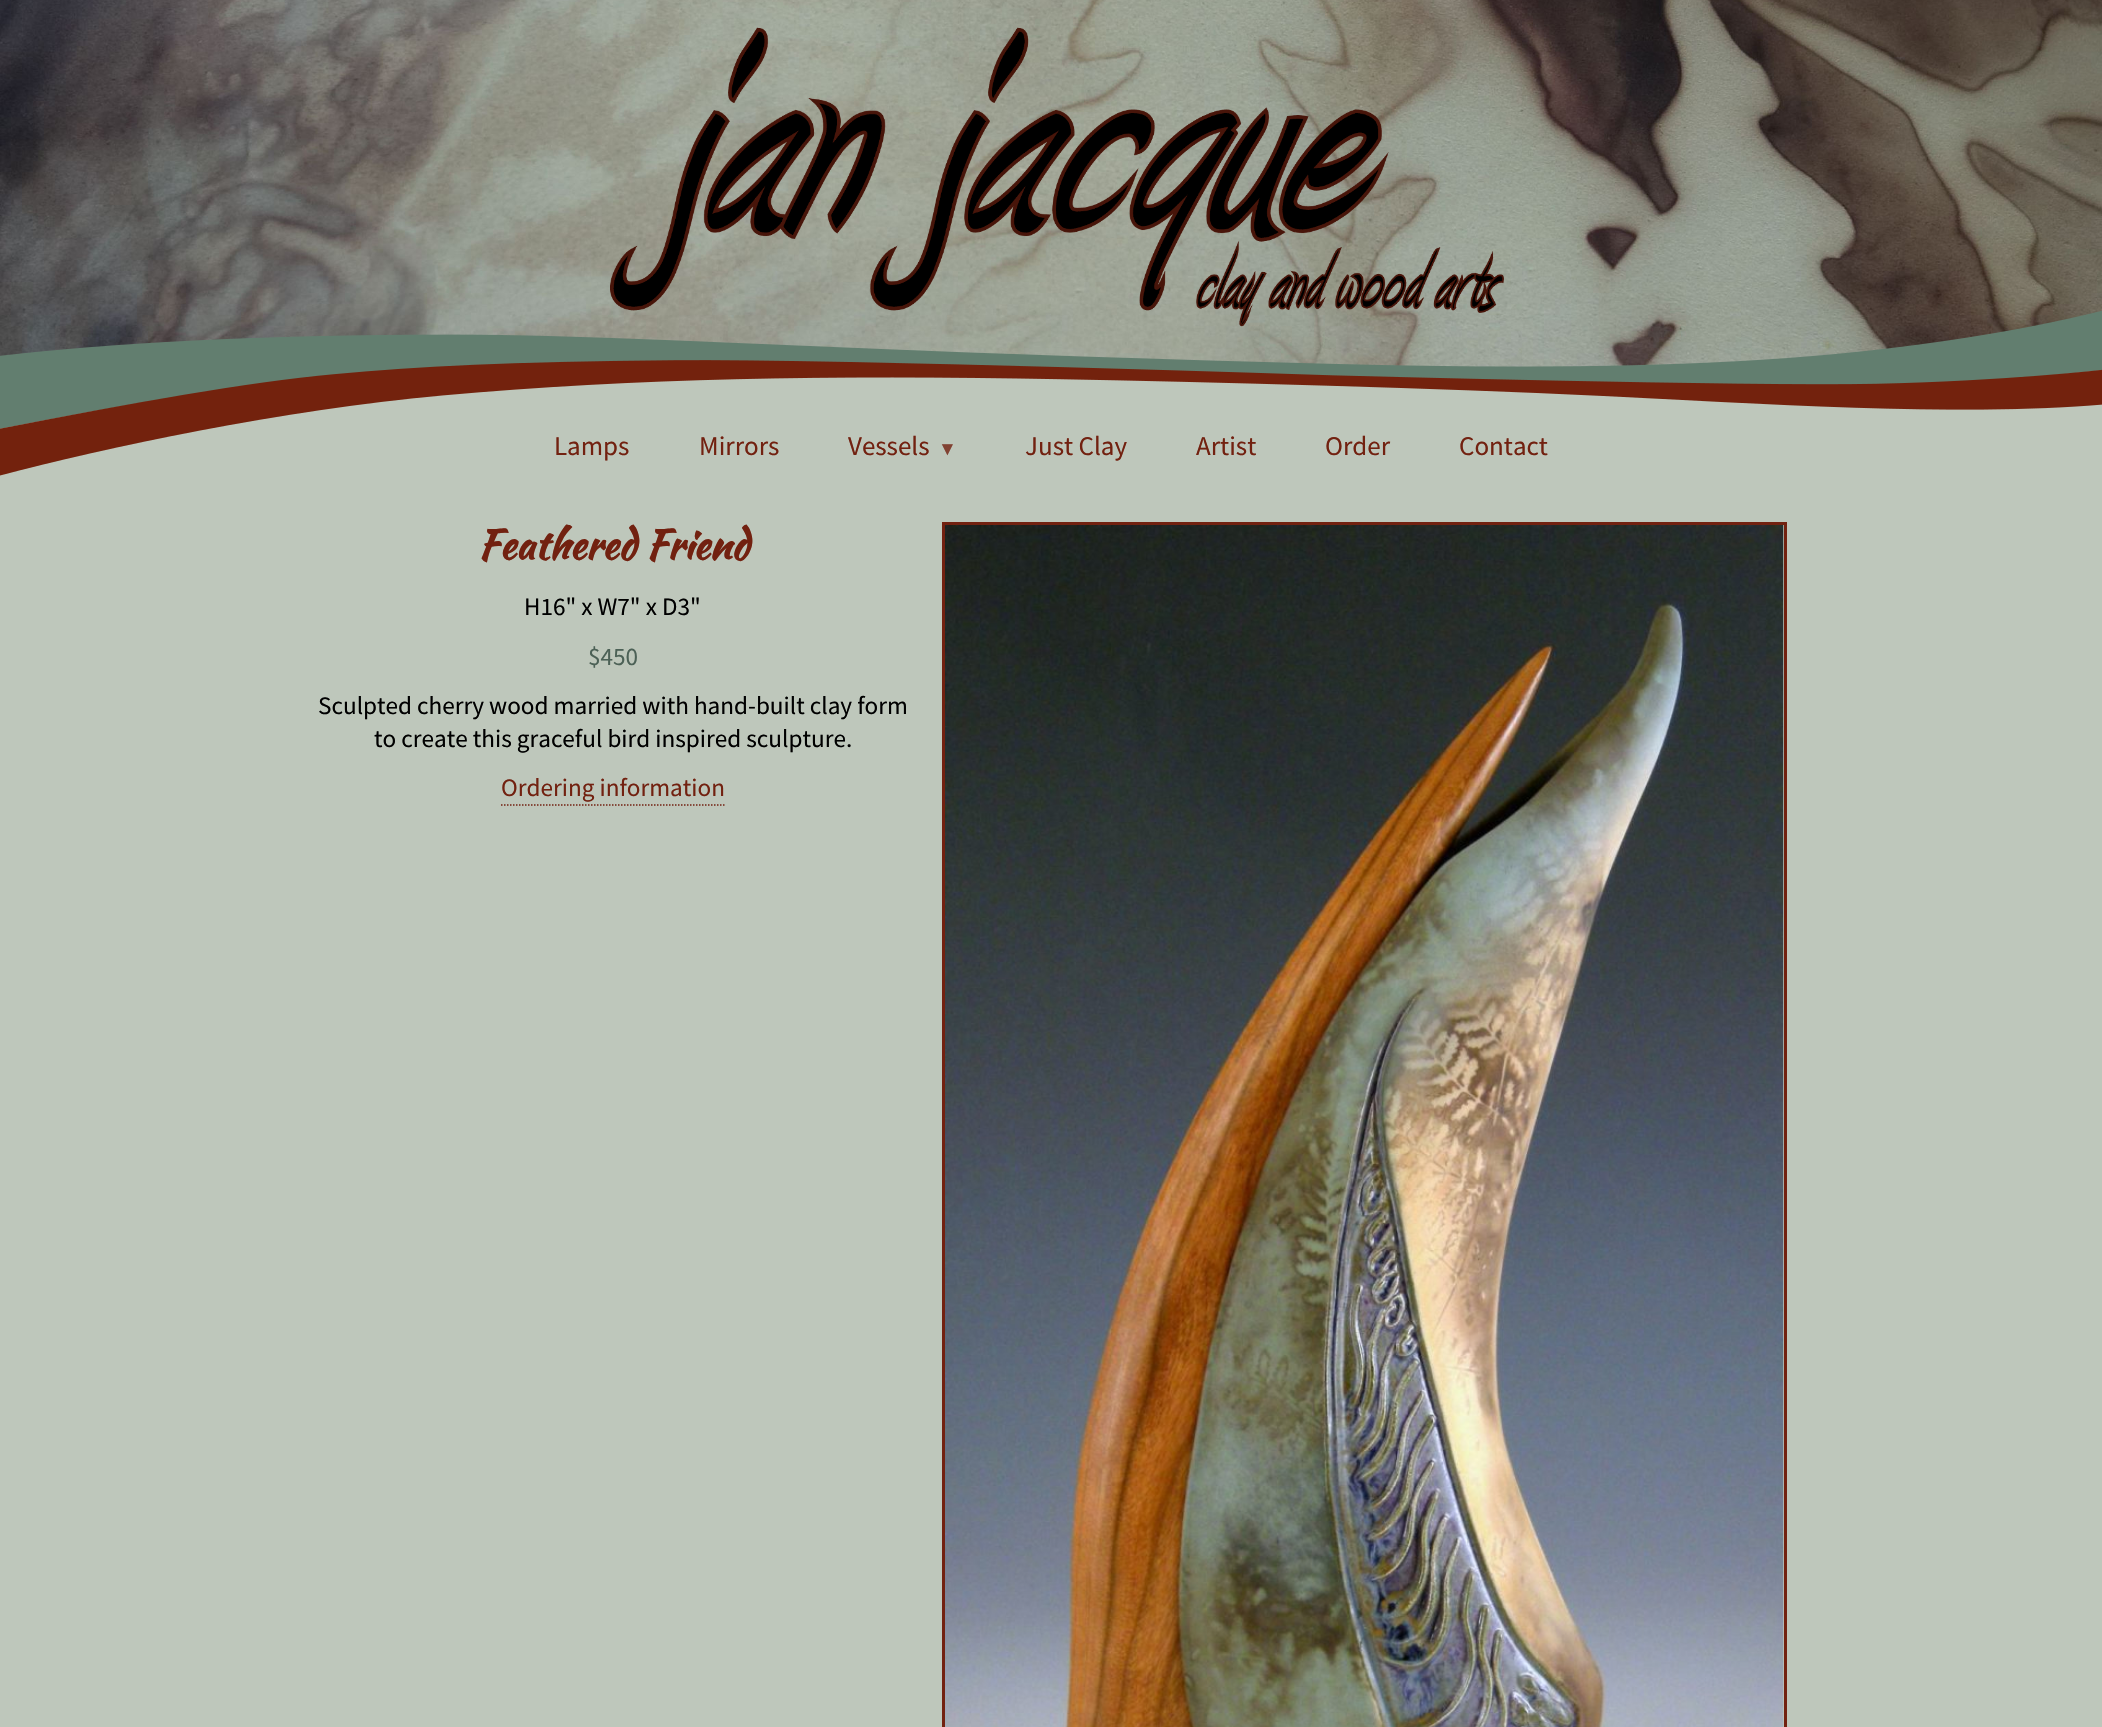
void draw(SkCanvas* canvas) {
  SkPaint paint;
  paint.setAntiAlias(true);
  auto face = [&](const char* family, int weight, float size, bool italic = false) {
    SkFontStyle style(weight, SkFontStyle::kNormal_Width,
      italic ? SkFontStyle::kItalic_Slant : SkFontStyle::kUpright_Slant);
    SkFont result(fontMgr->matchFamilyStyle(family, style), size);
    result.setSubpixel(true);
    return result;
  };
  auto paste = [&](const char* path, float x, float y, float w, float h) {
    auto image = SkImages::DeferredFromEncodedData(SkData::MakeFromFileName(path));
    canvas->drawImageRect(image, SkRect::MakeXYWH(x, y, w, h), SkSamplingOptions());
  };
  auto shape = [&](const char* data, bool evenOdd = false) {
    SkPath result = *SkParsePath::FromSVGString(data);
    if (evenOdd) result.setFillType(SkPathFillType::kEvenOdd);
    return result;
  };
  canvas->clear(0xffbec7bb);
  paste("img/1.png", 0, 0, 2102, 371);
  paste("img/2.png", 610, 27, 894, 300);
  paste("img/3.png", 0, 311, 2102, 165);
  paint.setStroke(true);
  paint.setStrokeWidth(1.5f);
  paint.setColor(0xff722110);
  paint.setPathEffect(SkDashPathEffect::Make({{1.5f, 1.5f}}, 0));
  canvas->drawPath(shape("M501 805H724.5"), paint);
  paint.setPathEffect(nullptr);
  paint.setStrokeWidth(3);
  canvas->drawRect(SkRect::MakeXYWH(943.5f, 523.5f, 842, 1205), paint);
  paste("img/4.png", 945, 525, 839, 1202);
  auto f0 = face("Source Sans Pro", 400, 27);
  paint.setStroke(false);
  {
    const struct { const char* s; float x, y; } items[] = {
      {"Lamps", 554, 455},
      {"Mirrors", 699, 455},
      {"Vessels", 848, 455},
    };
    for (auto [s, x, y] : items) {
      canvas->drawString(s, x, y, f0, paint);
    }
  }
  auto f1 = face("Liberation Sans", 400, 19);
  paint.setColor(0xff814232);
  canvas->drawString("▼", 938, 455, f1, paint);
  paint.setColor(0xff722110);
  {
    const struct { const char* s; float x, y; } items[] = {
      {"Just Clay", 1025, 455},
      {"Artist", 1196, 455},
      {"Order", 1325, 455},
      {"Contact", 1459, 455},
    };
    for (auto [s, x, y] : items) {
      canvas->drawString(s, x, y, f0, paint);
    }
  }
  auto f2 = face("Kaushan Script", 700, 40.25f);
  canvas->drawString("Feathered Friend", 477, 559, f2, paint);
  auto f3 = face("Source Sans Pro", 400, 25.2f);
  paint.setColor(0xff000000);
  canvas->drawString("H16\" x W7\" x D3\"", 524, 615, f3, paint);
  paint.setColor(0xff4c6156);
  canvas->drawString("$450", 588, 665, f3, paint);
  paint.setColor(0xff000000);
  canvas->drawString("Sculpted cherry wood married with hand-built clay form", 318, 714, f3, paint);
  canvas->drawString("to create this graceful bird inspired sculpture.", 374, 747, f3, paint);
  paint.setColor(0xff722110);
  canvas->drawString("Ordering information", 501, 796, f3, paint);
}
